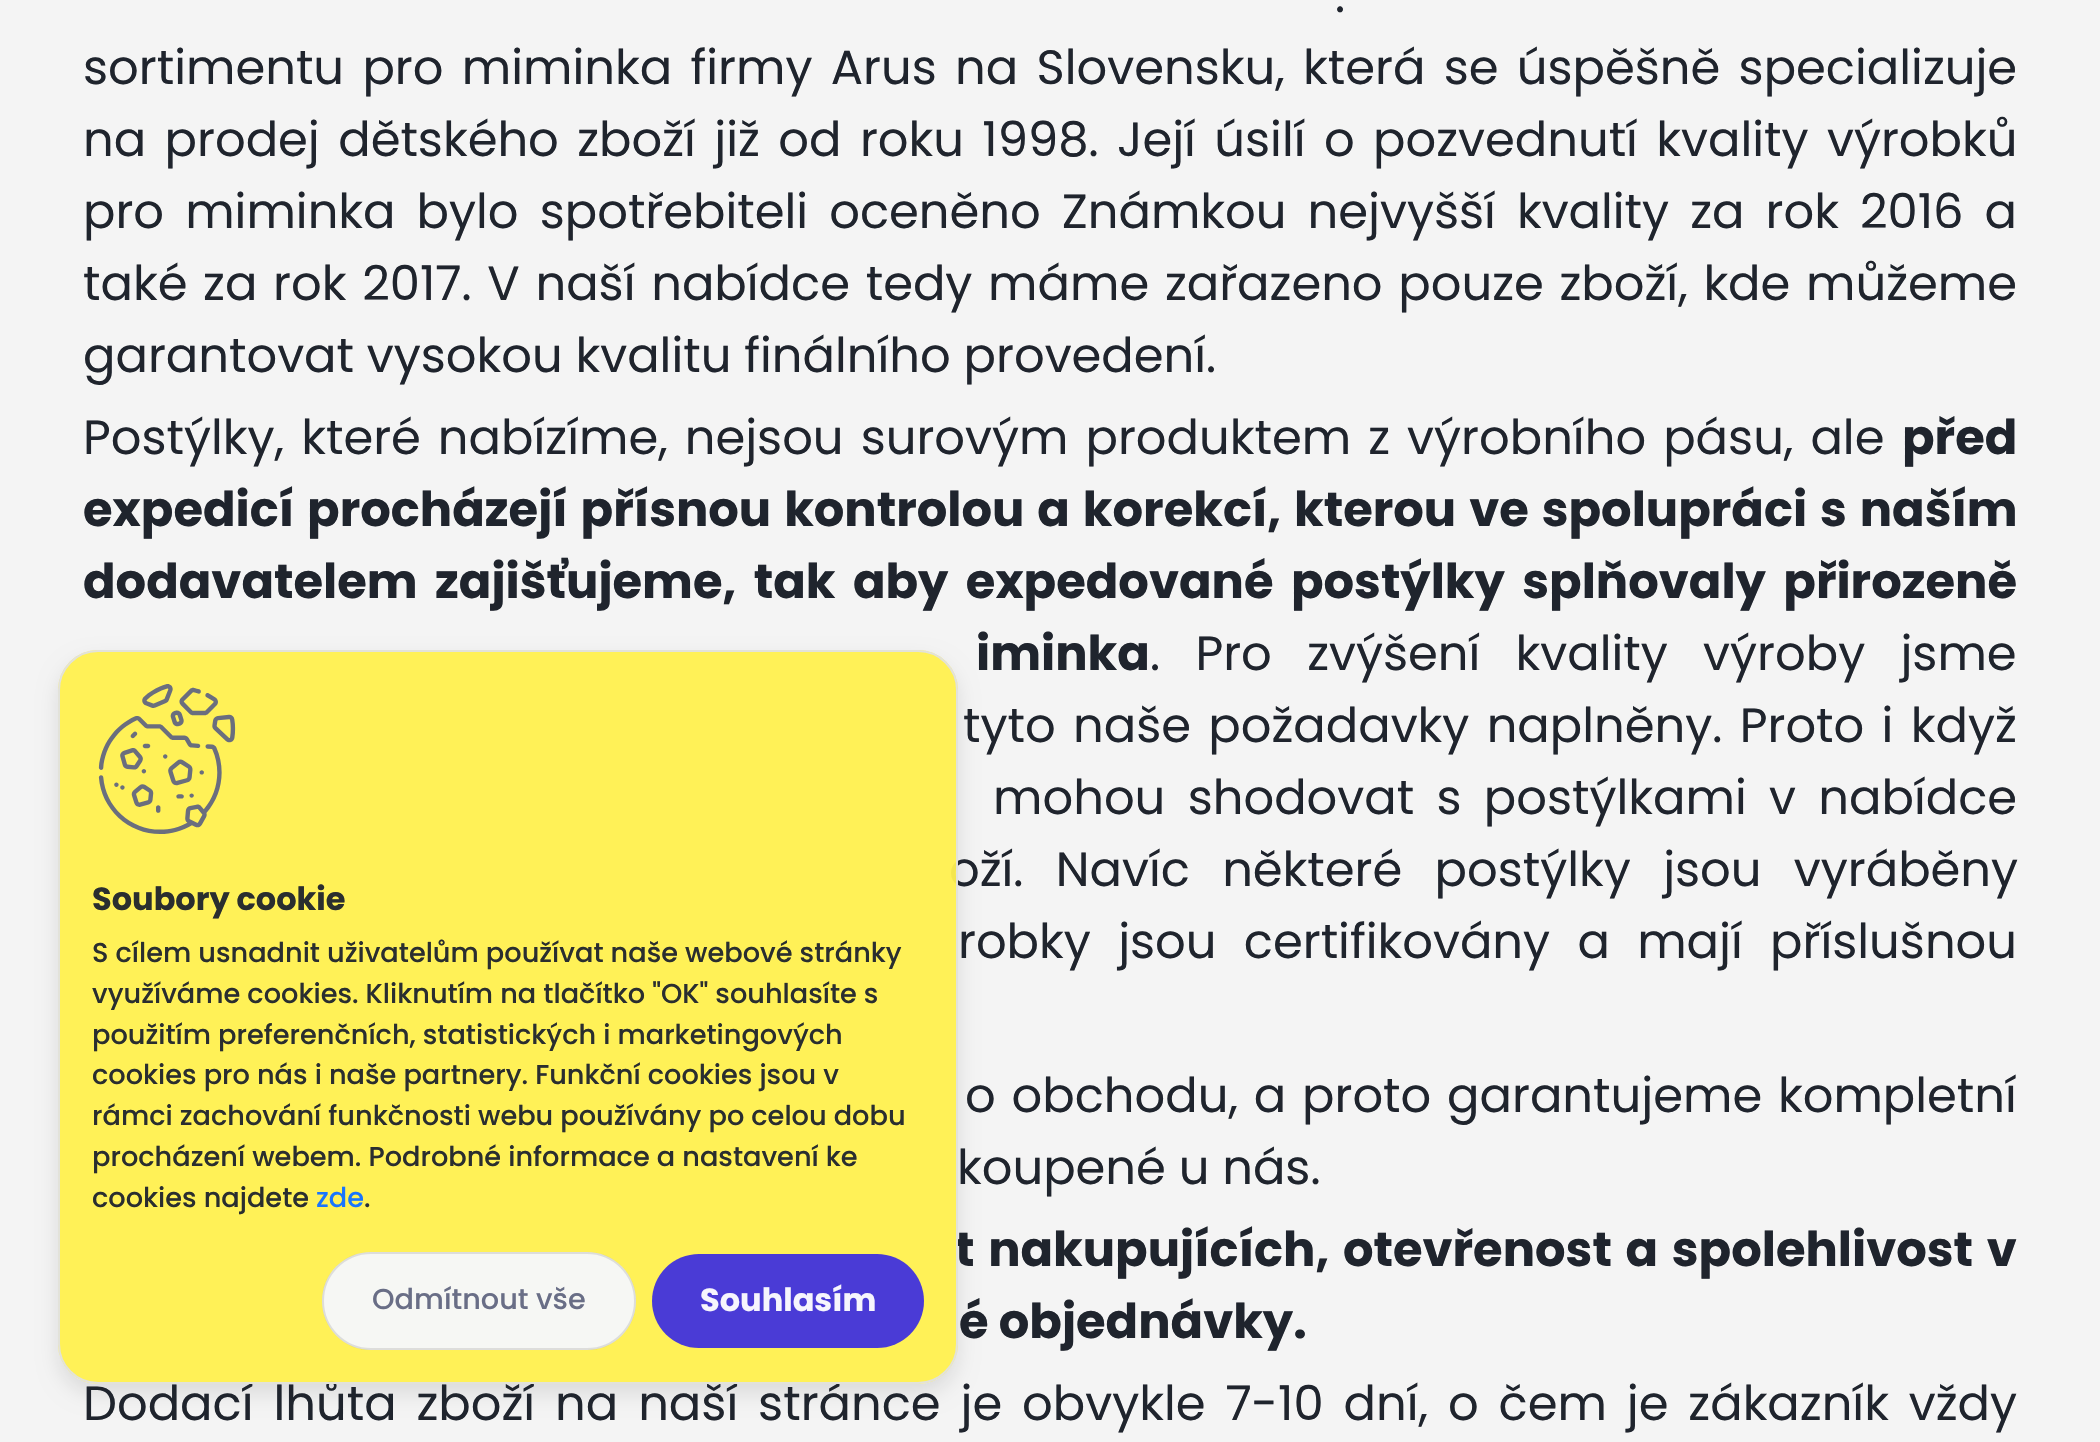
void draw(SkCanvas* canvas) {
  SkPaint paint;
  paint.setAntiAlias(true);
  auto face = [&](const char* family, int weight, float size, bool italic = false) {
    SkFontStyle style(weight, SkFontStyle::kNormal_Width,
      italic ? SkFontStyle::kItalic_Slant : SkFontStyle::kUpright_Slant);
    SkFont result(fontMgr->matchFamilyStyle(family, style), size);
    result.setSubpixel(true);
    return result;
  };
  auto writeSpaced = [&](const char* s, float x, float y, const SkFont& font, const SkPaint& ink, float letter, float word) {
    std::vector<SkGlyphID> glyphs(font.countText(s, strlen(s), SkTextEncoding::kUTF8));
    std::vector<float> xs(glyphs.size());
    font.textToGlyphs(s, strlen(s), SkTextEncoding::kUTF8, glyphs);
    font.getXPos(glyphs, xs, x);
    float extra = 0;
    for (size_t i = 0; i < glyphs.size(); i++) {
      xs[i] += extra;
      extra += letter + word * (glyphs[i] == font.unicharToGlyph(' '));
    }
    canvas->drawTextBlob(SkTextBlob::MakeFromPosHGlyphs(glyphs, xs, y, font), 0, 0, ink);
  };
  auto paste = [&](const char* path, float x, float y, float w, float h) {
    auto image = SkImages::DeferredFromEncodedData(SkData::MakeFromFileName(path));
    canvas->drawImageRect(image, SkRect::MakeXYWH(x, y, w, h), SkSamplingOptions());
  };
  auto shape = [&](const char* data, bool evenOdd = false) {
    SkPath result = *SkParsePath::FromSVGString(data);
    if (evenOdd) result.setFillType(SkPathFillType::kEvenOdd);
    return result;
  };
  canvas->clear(0xfff4f4f4);
  canvas->save();
  canvas->clipPath(shape("M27 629H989V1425H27ZM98 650H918C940 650 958 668 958 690V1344C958 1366 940 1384 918 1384H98C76 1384 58 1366 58 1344V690C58 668 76 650 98 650Z", true), true);
  paint.setColor(0x1a000000);
  paint.setMaskFilter(SkMaskFilter::MakeBlur(kNormal_SkBlurStyle, 10));
  canvas->drawRoundRect(SkRect::MakeXYWH(58, 660, 900, 734), 40, 40, paint);
  paint.setMaskFilter(nullptr);
  canvas->restore();
  auto f0 = face("Poppins", 400, 48);
  paint.setColor(0xff1f242d);
  writeSpaced(".", 1335, 12, f0, paint, 0, 16);
  writeSpaced("sortimentu pro miminka firmy Arus na Slovensku, která se úspěšně specializuje", 83, 84, f0, paint, 0, 5.5f);
  writeSpaced("na prodej dětského zboží již od roku 1998. Její úsilí o pozvednutí kvality výrobků", 83, 156, f0, paint, 0, 5.6f);
  writeSpaced("pro miminka bylo spotřebiteli oceněno Známkou nejvyšší kvality za rok 2016 a", 83, 228, f0, paint, 0, 8.25f);
  writeSpaced("také za rok 2017. V naší nabídce tedy máme zařazeno pouze zboží, kde můžeme", 83, 300, f0, paint, 0, 2.9f);
  canvas->drawString("garantovat vysokou kvalitu finálního provedení.", 83, 372, f0, paint);
  writeSpaced("Postýlky, které nabízíme, nejsou surovým produktem z výrobního pásu, ale", 83, 454, f0, paint, 0, 4.25f);
  auto f1 = face("Poppins", 700, 48);
  canvas->drawString("před", 1902, 454, f1, paint);
  writeSpaced("expedicí procházejí přísnou kontrolou a korekcí, kterou ve spolupráci s naším", 83, 526, f1, paint, 0, 2.75f);
  writeSpaced("dodavatelem zajišťujeme, tak aby expedované postýlky splňovaly přirozeně", 83, 598, f1, paint, 0, 7.25f);
  writeSpaced("iminka", 976, 670, f1, paint, 0, 22.5f);
  writeSpaced(". Pro zvýšení kvality výroby jsme", 1150, 670, f0, paint, 0, 22.5f);
  writeSpaced("tyto naše požadavky naplněny. Proto i když", 963, 742, f0, paint, 0, 4.5f);
  writeSpaced("mohou shodovat s postýlkami v nabídce", 993, 814, f0, paint, 0, 9.5f);
  writeSpaced("oží. Navíc některé postýlky jsou vyráběny", 949, 886, f0, paint, 0, 19.5f);
  writeSpaced("robky jsou certifikovány a mají příslušnou", 958, 958, f0, paint, 0, 14.5f);
  writeSpaced("o obchodu, a proto garantujeme kompletní", 965, 1112, f0, paint, 0, 3);
  canvas->drawString("koupené u nás.", 957, 1184, f0, paint);
  writeSpaced("t nakupujících, otevřenost a spolehlivost v", 955, 1266, f1, paint, 0, 3.5f);
  canvas->drawString("é objednávky.", 959, 1338, f1, paint);
  writeSpaced("Dodací lhůta zboží na naší stránce je obvykle 7-10 dní, o čem je zákazník vždy", 83, 1420, f0, paint, 0, 7.1f);
  paint.setColor(0xf2fff04e);
  canvas->drawRoundRect(SkRect::MakeXYWH(58, 650, 900, 734), 40, 40, paint);
  paint.setStroke(true);
  paint.setStrokeWidth(2);
  paint.setColor(0xf2e0e0e0);
  canvas->drawRoundRect(SkRect::MakeXYWH(59, 651, 898, 732), 39, 39, paint);
  paste("img/1.png", 98, 684, 138, 150);
  auto f2 = face("Poppins", 700, 32);
  paint.setStroke(false);
  paint.setColor(0xff2a2e2f);
  canvas->drawString("Soubory cookie", 92, 910, f2, paint);
  auto f3 = face("Poppins", 500, 27.2f);
  {
    const struct { const char* s; float x, y; } items[] = {
      {"S cílem usnadnit uživatelům používat naše webové stránky", 92, 962},
      {"využíváme cookies. Kliknutím na tlačítko \"OK\" souhlasíte s", 92, 1003},
      {"použitím preferenčních, statistických i marketingových", 92, 1044},
      {"cookies pro nás i naše partnery. Funkční cookies jsou v", 92, 1084},
      {"rámci zachování funkčnosti webu používány po celou dobu", 92, 1125},
      {"procházení webem. Podrobné informace a nastavení ke", 92, 1166},
      {"cookies najdete", 92, 1207},
    };
    for (auto [s, x, y] : items) {
      canvas->drawString(s, x, y, f3, paint);
    }
  }
  paint.setColor(0xff1975fd);
  canvas->drawString("zde", 316, 1207, f3, paint);
  paint.setColor(0xff2a2e37);
  canvas->drawString(".", 364, 1207, f3, paint);
  paint.setColor(0xf2f6f7fc);
  canvas->drawRoundRect(SkRect::MakeXYWH(322, 1252, 314, 98), 49, 49, paint);
  paint.setStroke(true);
  paint.setColor(0x1a000000);
  canvas->drawRoundRect(SkRect::MakeXYWH(323, 1253, 312, 96), 48, 48, paint);
  auto f4 = face("Poppins", 500, 28.75f);
  paint.setStroke(false);
  paint.setColor(0xff696e86);
  canvas->drawString("Odmítnout vše", 372, 1309, f4, paint);
  paint.setColor(0xf24030dc);
  canvas->drawRoundRect(SkRect::MakeXYWH(652, 1254, 272, 94), 47, 47, paint);
  paint.setColor(0xfff6f5fd);
  canvas->drawString("Souhlasím", 700, 1311, f2, paint);
}
